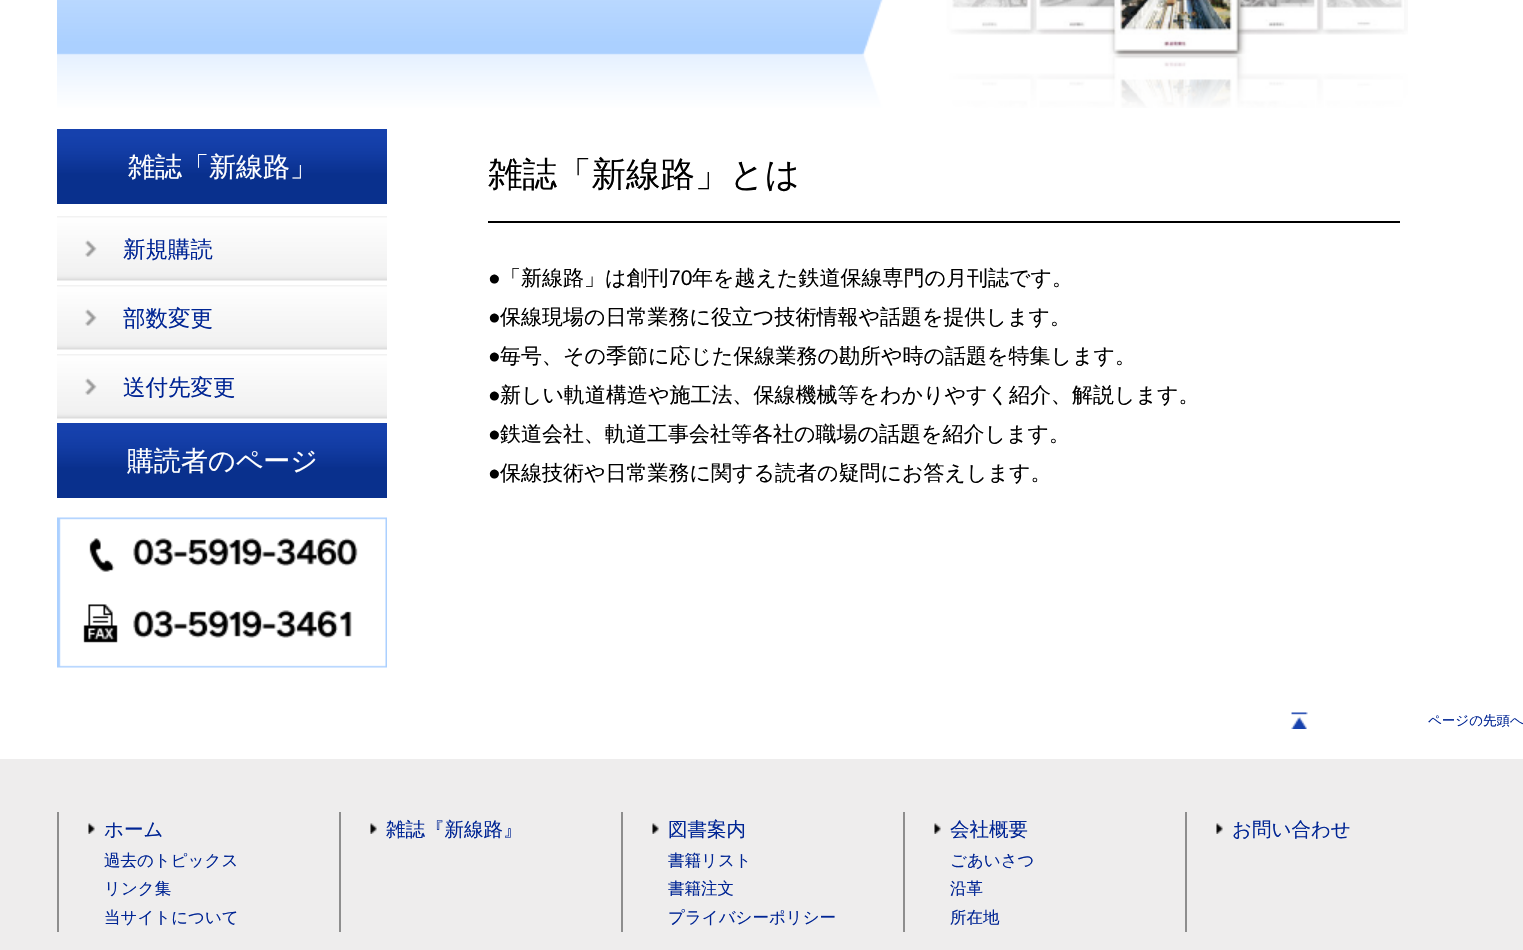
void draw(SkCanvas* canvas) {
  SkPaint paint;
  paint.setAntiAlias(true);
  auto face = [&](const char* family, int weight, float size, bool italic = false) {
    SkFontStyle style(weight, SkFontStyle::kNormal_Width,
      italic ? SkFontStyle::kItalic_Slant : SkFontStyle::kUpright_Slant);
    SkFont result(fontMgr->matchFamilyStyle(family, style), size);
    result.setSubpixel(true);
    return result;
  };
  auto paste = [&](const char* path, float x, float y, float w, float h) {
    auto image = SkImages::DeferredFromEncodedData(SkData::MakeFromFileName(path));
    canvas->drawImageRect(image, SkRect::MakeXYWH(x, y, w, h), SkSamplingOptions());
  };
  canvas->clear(0xffffffff);
  paste("img/1.png", 57, 0, 1351, 108);
  paste("img/2.png", 57, 129, 330, 75);
  paste("img/3.png", 57, 216, 330, 65);
  paste("img/3.png", 57, 285, 330, 65);
  paste("img/3.png", 57, 354, 330, 65);
  paste("img/2.png", 57, 423, 330, 75);
  paste("img/4.png", 57, 517, 330, 151);
  paint.setColor(0xff000000);
  canvas->drawRect(SkRect::MakeXYWH(488, 221, 912, 2), paint);
  paste("img/5.png", 1291, 712, 17, 17);
  paint.setColor(0xffeeeded);
  canvas->drawRect(SkRect::MakeXYWH(0, 759, 1523, 191), paint);
  paint.setColor(0xff8e8e8e);
  canvas->drawRect(SkRect::MakeXYWH(57, 812, 2, 120), paint);
  paste("img/6.png", 88, 823, 7, 11);
  canvas->drawRect(SkRect::MakeXYWH(339, 812, 2, 120), paint);
  paste("img/7.png", 370, 823, 7, 11);
  canvas->drawRect(SkRect::MakeXYWH(621, 812, 2, 120), paint);
  paste("img/7.png", 652, 823, 7, 11);
  canvas->drawRect(SkRect::MakeXYWH(903, 812, 2, 120), paint);
  paste("img/6.png", 934, 823, 7, 11);
  canvas->drawRect(SkRect::MakeXYWH(1185, 812, 2, 120), paint);
  paste("img/6.png", 1216, 823, 7, 11);
  auto f0 = face("WenQuanYi Zen Hei", 500, 27);
  paint.setColor(0xffffffff);
  canvas->drawString("雑誌「新線路」", 128, 176, f0, paint);
  auto f1 = face("WenQuanYi Zen Hei", 500, 22.5f);
  paint.setColor(0xff002594);
  {
    const struct { const char* s; float x, y; } items[] = {
      {"新規購読", 123, 257},
      {"部数変更", 123, 326},
      {"送付先変更", 123, 395},
    };
    for (auto [s, x, y] : items) {
      canvas->drawString(s, x, y, f1, paint);
    }
  }
  paint.setColor(0xffffffff);
  canvas->drawString("購読者のページ", 127, 470, f0, paint);
  auto f2 = face("WenQuanYi Zen Hei", 500, 34.5f);
  paint.setColor(0xff000000);
  canvas->drawString("雑誌「新線路」とは", 488, 186, f2, paint);
  auto f3 = face("Liberation Sans", 400, 21);
  canvas->drawString("●", 488, 285, f3, paint);
  auto f4 = face("WenQuanYi Zen Hei", 500, 21);
  canvas->drawString("「新線路」は創刊", 500, 285, f4, paint);
  canvas->drawString("70", 669, 285, f3, paint);
  canvas->drawString("年を越えた鉄道保線専門の月刊誌です。", 692, 285, f4, paint);
  canvas->drawString("●", 488, 324, f3, paint);
  canvas->drawString("保線現場の日常業務に役立つ技術情報や話題を提供します。", 500, 324, f4, paint);
  canvas->drawString("●", 488, 363, f3, paint);
  canvas->drawString("毎号、その季節に応じた保線業務の勘所や時の話題を特集します。", 500, 363, f4, paint);
  canvas->drawString("●", 488, 402, f3, paint);
  canvas->drawString("新しい軌道構造や施工法、保線機械等をわかりやすく紹介、解説します。", 500, 402, f4, paint);
  canvas->drawString("●", 488, 441, f3, paint);
  canvas->drawString("鉄道会社、軌道工事会社等各社の職場の話題を紹介します。", 500, 441, f4, paint);
  canvas->drawString("●", 488, 480, f3, paint);
  canvas->drawString("保線技術や日常業務に関する読者の疑問にお答えします。", 500, 480, f4, paint);
  auto f5 = face("WenQuanYi Zen Hei", 500, 13.5f);
  paint.setColor(0xff002594);
  canvas->drawString("ページの先頭へ", 1428, 725, f5, paint);
  auto f6 = face("WenQuanYi Zen Hei", 500, 19.5f);
  canvas->drawString("ホーム", 104, 836, f6, paint);
  auto f7 = face("WenQuanYi Zen Hei", 500, 16.5f);
  {
    const struct { const char* s; float x, y; } items[] = {
      {"過去のトピックス", 104, 866},
      {"リンク集", 104, 894},
      {"当サイトについて", 104, 923},
    };
    for (auto [s, x, y] : items) {
      canvas->drawString(s, x, y, f7, paint);
    }
  }
  canvas->drawString("雑誌『新線路』", 386, 836, f6, paint);
  canvas->drawString("図書案内", 668, 836, f6, paint);
  {
    const struct { const char* s; float x, y; } items[] = {
      {"書籍リスト", 668, 866},
      {"書籍注文", 668, 894},
      {"プライバシーポリシー", 668, 923},
    };
    for (auto [s, x, y] : items) {
      canvas->drawString(s, x, y, f7, paint);
    }
  }
  canvas->drawString("会社概要", 950, 836, f6, paint);
  {
    const struct { const char* s; float x, y; } items[] = {
      {"ごあいさつ", 950, 866},
      {"沿革", 950, 894},
      {"所在地", 950, 923},
    };
    for (auto [s, x, y] : items) {
      canvas->drawString(s, x, y, f7, paint);
    }
  }
  canvas->drawString("お問い合わせ", 1232, 836, f6, paint);
}
